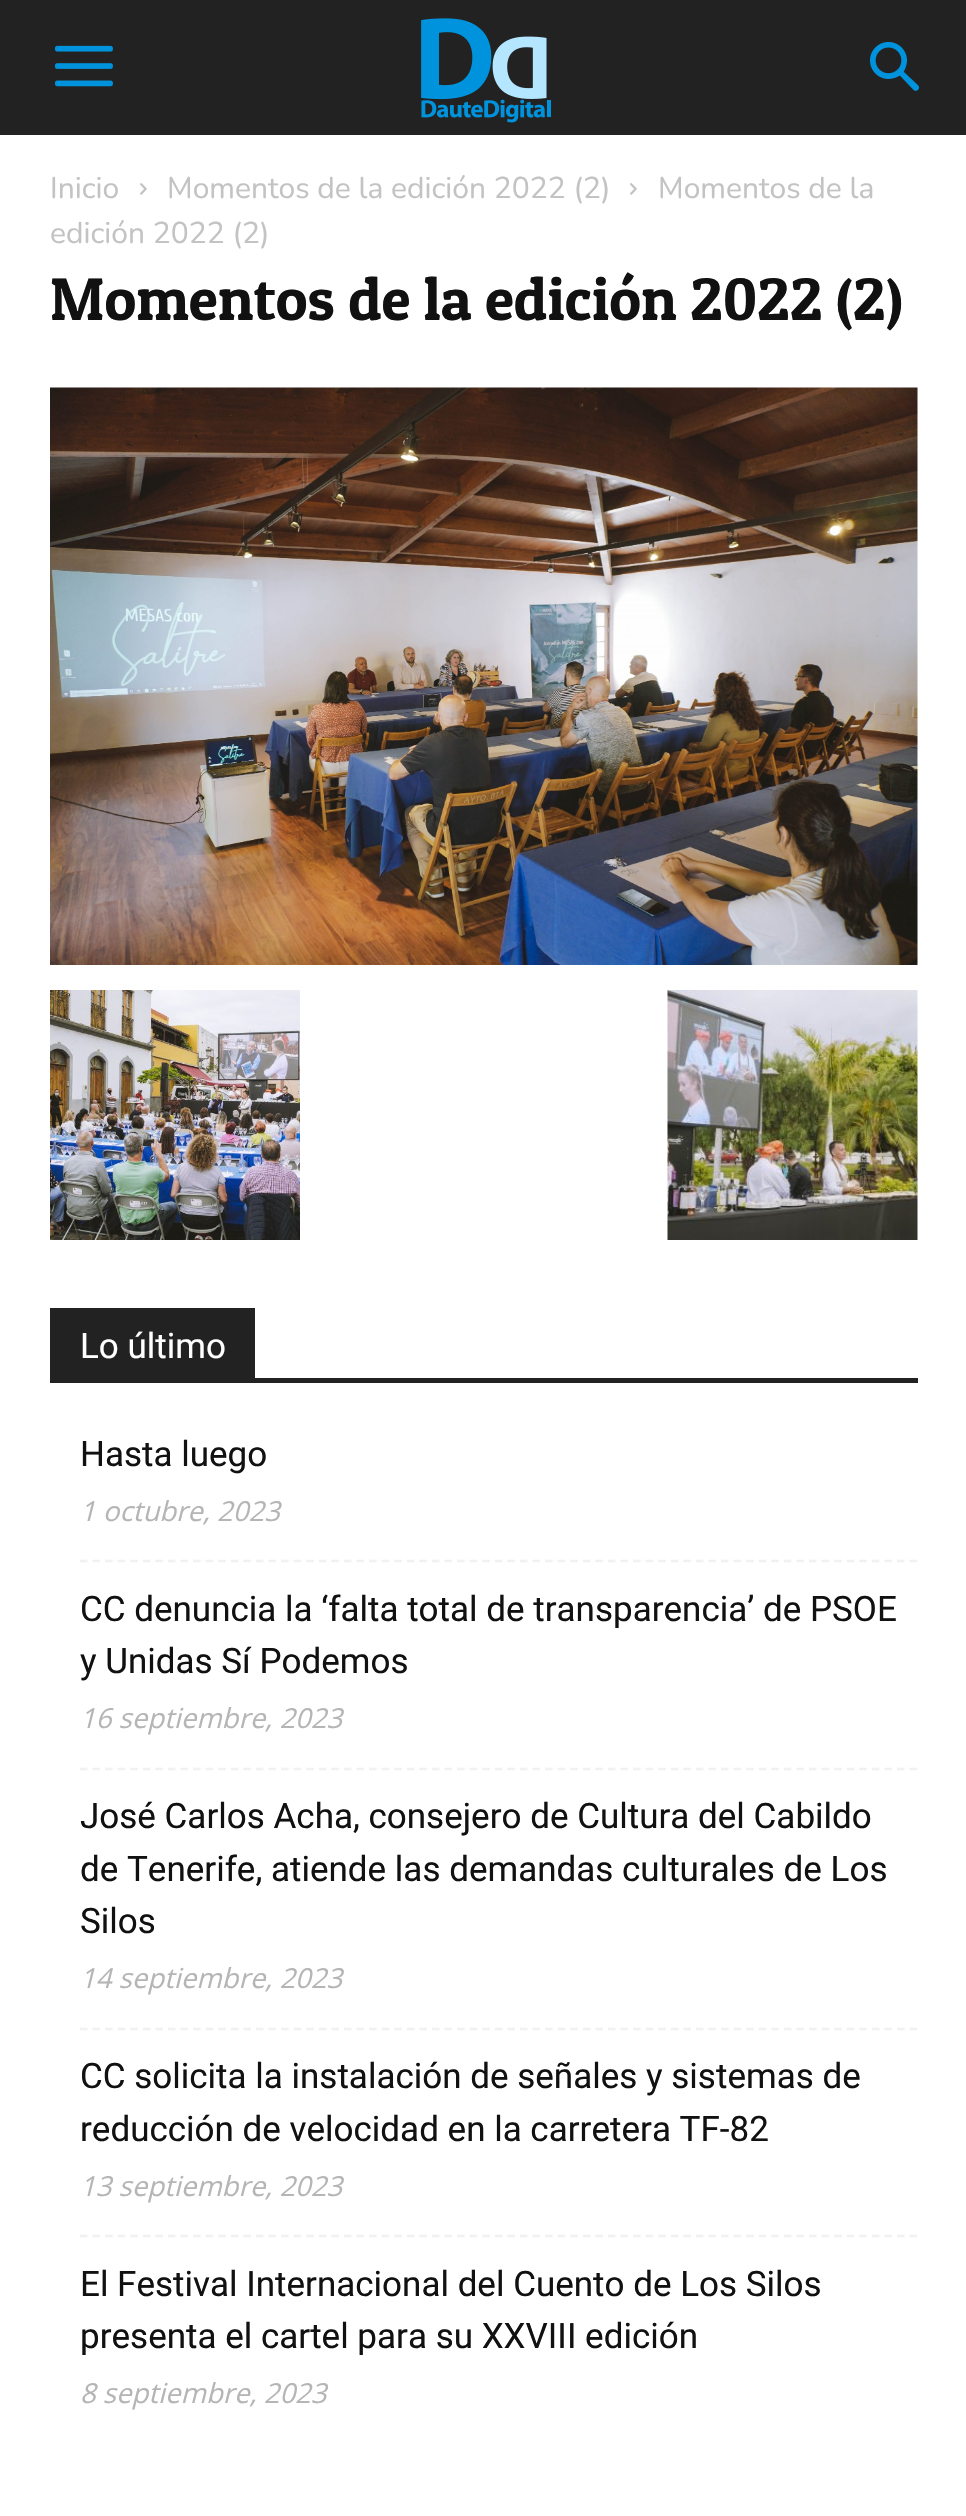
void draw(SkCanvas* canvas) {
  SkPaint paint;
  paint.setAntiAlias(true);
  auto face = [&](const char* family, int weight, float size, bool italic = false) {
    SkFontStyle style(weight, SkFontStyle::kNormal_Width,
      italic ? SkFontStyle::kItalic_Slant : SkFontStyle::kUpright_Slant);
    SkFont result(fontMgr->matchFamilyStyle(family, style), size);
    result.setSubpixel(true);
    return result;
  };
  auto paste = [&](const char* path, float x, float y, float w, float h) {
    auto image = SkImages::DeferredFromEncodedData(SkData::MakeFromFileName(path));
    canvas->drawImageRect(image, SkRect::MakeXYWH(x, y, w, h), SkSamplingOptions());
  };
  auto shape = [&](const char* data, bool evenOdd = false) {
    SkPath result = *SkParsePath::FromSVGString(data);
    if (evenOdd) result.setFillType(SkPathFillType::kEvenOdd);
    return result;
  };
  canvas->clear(0xffffffff);
  paint.setColor(0xff222222);
  canvas->drawRect(SkRect::MakeXYWH(0, 0, 966, 135), paint);
  paste("img/1.png", 421, 18, 130, 105);
  paste("img/2.png", 55, 45, 58, 42);
  paste("img/3.png", 870, 42, 49, 49);
  paste("img/4.png", 140, 183, 7, 12);
  paste("img/4.png", 630, 183, 7, 12);
  paste("img/5.png", 50, 387, 868, 578);
  paste("img/6.png", 50, 990, 250, 250);
  paste("img/7.png", 667, 990, 251, 250);
  canvas->drawRect(SkRect::MakeXYWH(50, 1378, 868, 5), paint);
  canvas->drawRect(SkRect::MakeXYWH(50, 1308, 205, 70), paint);
  paint.setStroke(true);
  paint.setStrokeWidth(2.5f);
  paint.setColor(0xfff1f1f1);
  paint.setPathEffect(SkDashPathEffect::Make({{7.5f, 5.07f}}, 0));
  canvas->drawPath(shape("M80 1561H917.5"), paint);
  paint.setPathEffect(nullptr);
  paint.setPathEffect(SkDashPathEffect::Make({{7.5f, 5.07f}}, 0));
  canvas->drawPath(shape("M80 1769H917.5"), paint);
  paint.setPathEffect(nullptr);
  paint.setPathEffect(SkDashPathEffect::Make({{7.5f, 5.07f}}, 0));
  canvas->drawPath(shape("M80 2029H917.5"), paint);
  paint.setPathEffect(nullptr);
  paint.setPathEffect(SkDashPathEffect::Make({{7.5f, 5.07f}}, 0));
  canvas->drawPath(shape("M80 2236H917.5"), paint);
  paint.setPathEffect(nullptr);
  auto f0 = face("Nunito", 200, 30);
  paint.setStroke(false);
  paint.setColor(0xffc3c3c3);
  {
    const struct { const char* s; float x, y; } items[] = {
      {"Inicio", 50, 198},
      {"Momentos de la edición 2022 (2)", 167, 198},
      {"Momentos de la", 658, 198},
      {"edición 2022 (2)", 50, 243},
    };
    for (auto [s, x, y] : items) {
      canvas->drawString(s, x, y, f0, paint);
    }
  }
  auto f1 = face("Patua One", 400, 60);
  paint.setColor(0xff111111);
  canvas->drawString("Momentos de la edición 2022 (2)", 50, 320, f1, paint);
  auto f2 = face("Roboto", 400, 35);
  paint.setColor(0xffffffff);
  canvas->drawString("Lo último", 80, 1358, f2, paint);
  paint.setColor(0xff111111);
  canvas->drawString("Hasta luego", 80, 1466, f2, paint);
  auto f3 = face("Open Sans", 400, 27.5f, true);
  paint.setColor(0xffb5b5b5);
  canvas->drawString("1 octubre, 2023", 80, 1521, f3, paint);
  paint.setColor(0xff111111);
  canvas->drawString("CC denuncia la ‘falta total de transparencia’ de PSOE", 80, 1621, f2, paint);
  canvas->drawString("y Unidas Sí Podemos", 80, 1673, f2, paint);
  paint.setColor(0xffb5b5b5);
  canvas->drawString("16 septiembre, 2023", 80, 1728, f3, paint);
  paint.setColor(0xff111111);
  {
    const struct { const char* s; float x, y; } items[] = {
      {"José Carlos Acha, consejero de Cultura del Cabildo", 80, 1828},
      {"de Tenerife, atiende las demandas culturales de Los", 80, 1881},
      {"Silos", 80, 1933},
    };
    for (auto [s, x, y] : items) {
      canvas->drawString(s, x, y, f2, paint);
    }
  }
  paint.setColor(0xffb5b5b5);
  canvas->drawString("14 septiembre, 2023", 80, 1988, f3, paint);
  paint.setColor(0xff111111);
  canvas->drawString("CC solicita la instalación de señales y sistemas de", 80, 2088, f2, paint);
  canvas->drawString("reducción de velocidad en la carretera TF-82", 80, 2141, f2, paint);
  paint.setColor(0xffb5b5b5);
  canvas->drawString("13 septiembre, 2023", 80, 2196, f3, paint);
  paint.setColor(0xff111111);
  canvas->drawString("El Festival Internacional del Cuento de Los Silos", 80, 2296, f2, paint);
  canvas->drawString("presenta el cartel para su XXVIII edición", 80, 2348, f2, paint);
  paint.setColor(0xffb5b5b5);
  canvas->drawString("8 septiembre, 2023", 80, 2403, f3, paint);
}
